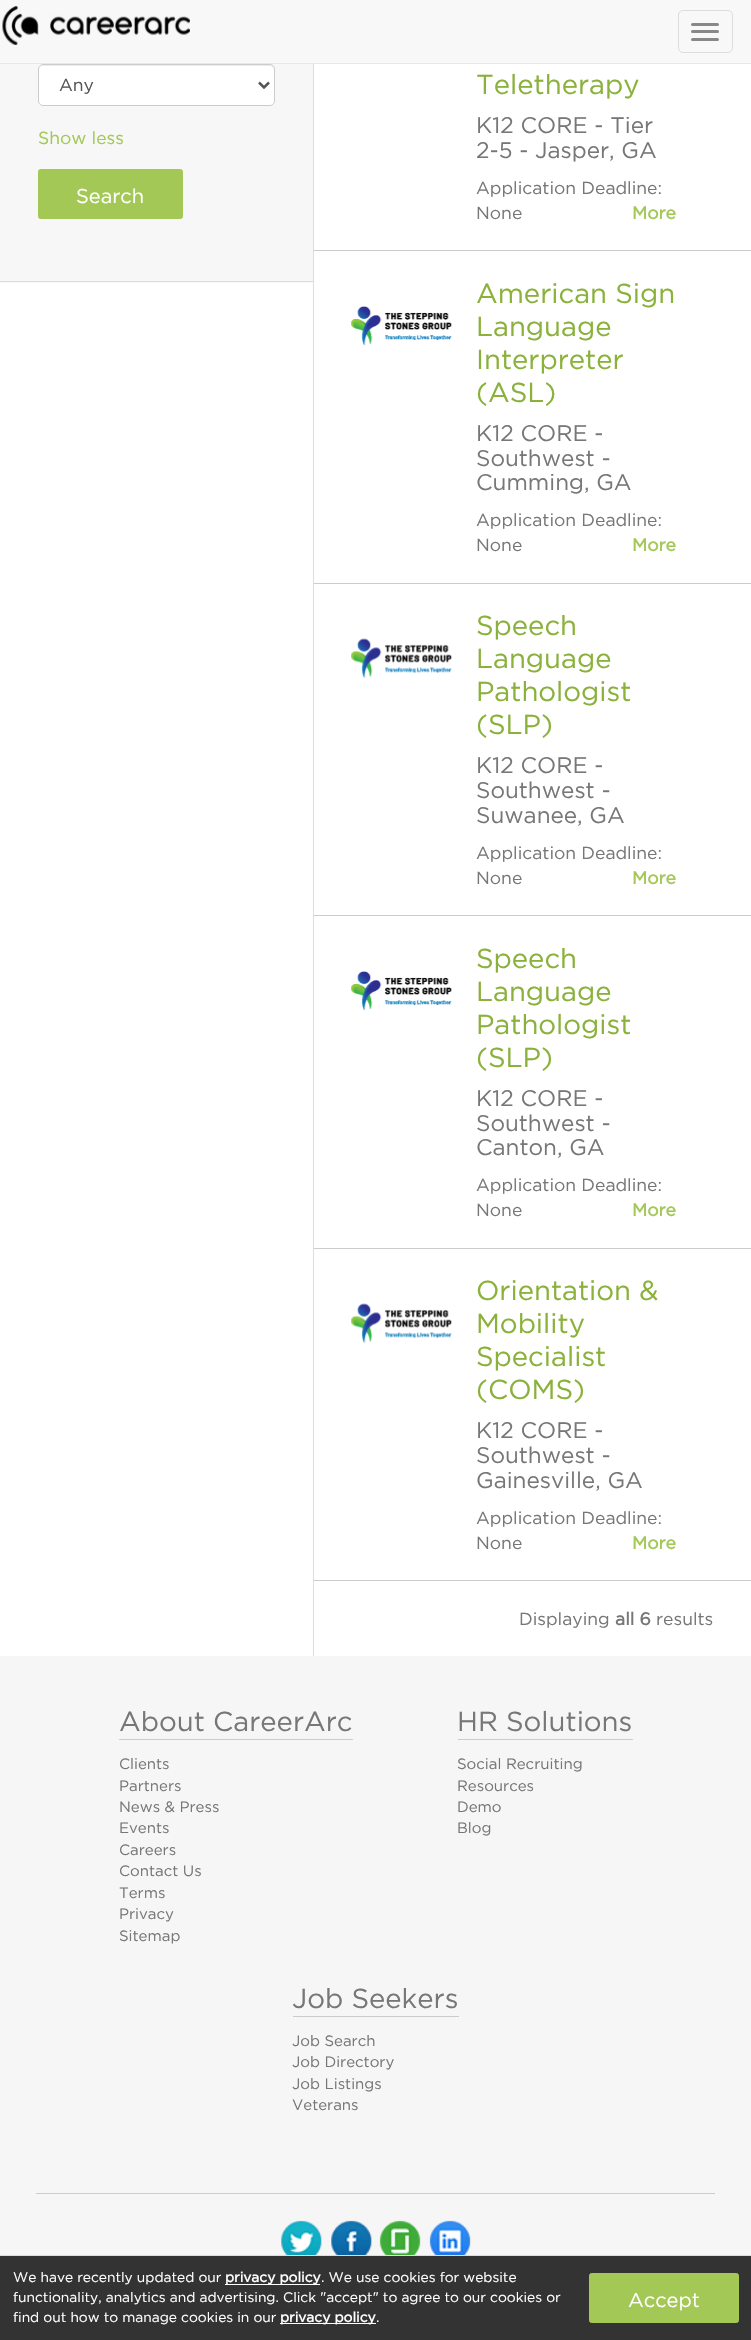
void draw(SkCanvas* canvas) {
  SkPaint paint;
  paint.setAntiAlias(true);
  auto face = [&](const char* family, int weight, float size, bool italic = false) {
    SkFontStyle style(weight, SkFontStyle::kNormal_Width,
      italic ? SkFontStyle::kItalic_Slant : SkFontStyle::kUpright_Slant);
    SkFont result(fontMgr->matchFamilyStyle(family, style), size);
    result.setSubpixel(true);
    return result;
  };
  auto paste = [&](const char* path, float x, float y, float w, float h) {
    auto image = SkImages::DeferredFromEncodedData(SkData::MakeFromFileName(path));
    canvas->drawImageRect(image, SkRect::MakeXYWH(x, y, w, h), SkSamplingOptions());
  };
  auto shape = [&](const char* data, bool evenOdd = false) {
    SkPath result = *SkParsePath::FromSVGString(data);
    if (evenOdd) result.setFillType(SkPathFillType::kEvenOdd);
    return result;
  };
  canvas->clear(0xffffffff);
  paint.setColor(0xfff8f8f8);
  canvas->drawRect(SkRect::MakeXYWH(0, 0, 751, 63), paint);
  paint.setColor(0xffe7e7e7);
  canvas->drawRect(SkRect::MakeXYWH(0, 63, 751, 1), paint);
  paste("img/1.png", 2, 6, 188, 39);
  paint.setStroke(true);
  paint.setStrokeWidth(1);
  paint.setColor(0xffdddddd);
  canvas->drawRoundRect(SkRect::MakeXYWH(678.5f, 10.5f, 54, 42), 4.5f, 4.5f, paint);
  paint.setStroke(false);
  paint.setColor(0xff888888);
  canvas->drawRoundRect(SkRect::MakeXYWH(691, 23, 28, 3), 1.5f, 1.5f, paint);
  canvas->drawRoundRect(SkRect::MakeXYWH(691, 30, 28, 3), 1.5f, 1.5f, paint);
  canvas->drawRoundRect(SkRect::MakeXYWH(691, 38, 28, 3), 1.5f, 1.5f, paint);
  paint.setColor(0xfff7f7f7);
  canvas->drawRect(SkRect::MakeXYWH(0, 64, 313, 219), paint);
  paint.setColor(0xffdddddd);
  canvas->drawRect(SkRect::MakeXYWH(0, 281, 314, 1), paint);
  paint.setColor(0xffffffff);
  canvas->drawRoundRect(SkRect::MakeXYWH(38, 64, 237, 42), 5, 5, paint);
  paint.setColor(0xffececec);
  canvas->drawPath(shape("M42 66H270C272 66 274 68 274 70C274 67 273 65 270 65H43C40 65 39 67 39 70C39 68 40 66 42 66Z"), paint);
  paint.setStroke(true);
  paint.setColor(0xffcccccc);
  canvas->drawRoundRect(SkRect::MakeXYWH(38.5f, 64.5f, 236, 41), 4.5f, 4.5f, paint);
  paint.setStrokeWidth(2.5f);
  paint.setColor(0xff555555);
  canvas->drawPath(shape("M259 82.5L264 87.5L269 82.5"), paint);
  paint.setStroke(false);
  paint.setColor(0xffa3c856);
  canvas->drawRoundRect(SkRect::MakeXYWH(38.5f, 169.5f, 144, 49), 2, 2, paint);
  paint.setStroke(true);
  paint.setStrokeWidth(1);
  canvas->drawRoundRect(SkRect::MakeXYWH(38.5f, 169.5f, 144, 49), 2, 2, paint);
  paint.setStroke(false);
  {
    const struct { float x, y, w, h; SkColor color; } items[] = {
      {313, 64, 1, 1592, 0xffdddddd},
      {314, 250, 437, 1, 0xffcccccc},
      {314, 583, 437, 1, 0xffcccccc},
    };
    for (auto [x, y, w, h, color] : items) {
      paint.setColor(color);
      canvas->drawRect(SkRect::MakeXYWH(x, y, w, h), paint);
    }
  }
  paste("img/2.png", 351, 306, 101, 40);
  canvas->drawRect(SkRect::MakeXYWH(314, 915, 437, 1), paint);
  paste("img/3.png", 351, 638, 101, 40);
  canvas->drawRect(SkRect::MakeXYWH(314, 1248, 437, 1), paint);
  paste("img/2.png", 351, 971, 101, 40);
  canvas->drawRect(SkRect::MakeXYWH(314, 1580, 437, 1), paint);
  paste("img/3.png", 351, 1303, 101, 40);
  {
    const struct { float x, y, w, h; SkColor color; } items[] = {
      {0, 1656, 751, 599, 0xfff6f6f6},
      {119, 1739, 234, 1, 0xffcccccc},
      {458, 1739, 175, 1, 0xffcccccc},
      {293, 2016, 166, 1, 0xffcccccc},
      {36, 2193, 679, 1, 0xffcccccc},
    };
    for (auto [x, y, w, h, color] : items) {
      paint.setColor(color);
      canvas->drawRect(SkRect::MakeXYWH(x, y, w, h), paint);
    }
  }
  paste("img/4.png", 281, 2220, 41, 35);
  paste("img/5.png", 331, 2220, 41, 35);
  paste("img/6.png", 379, 2220, 42, 35);
  paste("img/7.png", 429, 2220, 42, 35);
  {
    const struct { float x, y, w, h; SkColor color; } items[] = {
      {0, 2256, 751, 84, 0xff333333},
      {0, 2255, 751, 1, 0xffdddddd},
      {225, 2284, 95, 1, 0xffffffff},
      {280, 2323, 96, 1, 0xffffffff},
    };
    for (auto [x, y, w, h, color] : items) {
      paint.setColor(color);
      canvas->drawRect(SkRect::MakeXYWH(x, y, w, h), paint);
    }
  }
  paint.setColor(0xffa3c856);
  canvas->drawRoundRect(SkRect::MakeXYWH(589.5f, 2273.5f, 149, 49), 2, 2, paint);
  paint.setStroke(true);
  canvas->drawRoundRect(SkRect::MakeXYWH(589.5f, 2273.5f, 149, 49), 2, 2, paint);
  auto f0 = face("Gotham", 400, 17.5f);
  paint.setStroke(false);
  paint.setColor(0xff555555);
  canvas->drawString("Any", 59, 91, f0, paint);
  paint.setColor(0xffa3c856);
  canvas->drawString("Show less", 38, 144, f0, paint);
  auto f1 = face("Gotham", 400, 20);
  paint.setColor(0xffffffff);
  canvas->drawString("Search", 76, 203, f1, paint);
  auto f2 = face("Gotham", 400, 27.5f);
  paint.setColor(0xff8ab13a);
  canvas->drawString("Teletherapy", 476, 94, f2, paint);
  auto f3 = face("Gotham", 400, 22.5f);
  paint.setColor(0xff777777);
  canvas->drawString("K12 CORE - Tier", 476, 133, f3, paint);
  canvas->drawString("2-5 - Jasper, GA", 476, 158, f3, paint);
  canvas->drawString("Application Deadline:", 476, 194, f0, paint);
  canvas->drawString("None", 476, 219, f0, paint);
  auto f4 = face("Gotham", 700, 17.5f);
  paint.setColor(0xffa3c856);
  canvas->drawString("More", 632, 219, f4, paint);
  paint.setColor(0xff8ab13a);
  {
    const struct { const char* s; float x, y; } items[] = {
      {"American Sign", 476, 303},
      {"Language", 476, 336},
      {"Interpreter", 476, 369},
      {"(ASL)", 476, 402},
    };
    for (auto [s, x, y] : items) {
      canvas->drawString(s, x, y, f2, paint);
    }
  }
  paint.setColor(0xff777777);
  {
    const struct { const char* s; float x, y; } items[] = {
      {"K12 CORE -", 476, 441},
      {"Southwest -", 476, 466},
      {"Cumming, GA", 476, 490},
    };
    for (auto [s, x, y] : items) {
      canvas->drawString(s, x, y, f3, paint);
    }
  }
  canvas->drawString("Application Deadline:", 476, 526, f0, paint);
  canvas->drawString("None", 476, 551, f0, paint);
  paint.setColor(0xffa3c856);
  canvas->drawString("More", 632, 551, f4, paint);
  paint.setColor(0xff8ab13a);
  {
    const struct { const char* s; float x, y; } items[] = {
      {"Speech", 476, 635},
      {"Language", 476, 668},
      {"Pathologist", 476, 701},
      {"(SLP)", 476, 734},
    };
    for (auto [s, x, y] : items) {
      canvas->drawString(s, x, y, f2, paint);
    }
  }
  paint.setColor(0xff777777);
  {
    const struct { const char* s; float x, y; } items[] = {
      {"K12 CORE -", 476, 773},
      {"Southwest -", 476, 798},
      {"Suwanee, GA", 476, 823},
    };
    for (auto [s, x, y] : items) {
      canvas->drawString(s, x, y, f3, paint);
    }
  }
  canvas->drawString("Application Deadline:", 476, 859, f0, paint);
  canvas->drawString("None", 476, 884, f0, paint);
  paint.setColor(0xffa3c856);
  canvas->drawString("More", 632, 884, f4, paint);
  paint.setColor(0xff8ab13a);
  {
    const struct { const char* s; float x, y; } items[] = {
      {"Speech", 476, 968},
      {"Language", 476, 1001},
      {"Pathologist", 476, 1034},
      {"(SLP)", 476, 1067},
    };
    for (auto [s, x, y] : items) {
      canvas->drawString(s, x, y, f2, paint);
    }
  }
  paint.setColor(0xff777777);
  {
    const struct { const char* s; float x, y; } items[] = {
      {"K12 CORE -", 476, 1106},
      {"Southwest -", 476, 1131},
      {"Canton, GA", 476, 1155},
    };
    for (auto [s, x, y] : items) {
      canvas->drawString(s, x, y, f3, paint);
    }
  }
  canvas->drawString("Application Deadline:", 476, 1191, f0, paint);
  canvas->drawString("None", 476, 1216, f0, paint);
  paint.setColor(0xffa3c856);
  canvas->drawString("More", 632, 1216, f4, paint);
  paint.setColor(0xff8ab13a);
  {
    const struct { const char* s; float x, y; } items[] = {
      {"Orientation &", 476, 1300},
      {"Mobility", 476, 1333},
      {"Specialist", 476, 1366},
      {"(COMS)", 476, 1399},
    };
    for (auto [s, x, y] : items) {
      canvas->drawString(s, x, y, f2, paint);
    }
  }
  paint.setColor(0xff777777);
  {
    const struct { const char* s; float x, y; } items[] = {
      {"K12 CORE -", 476, 1438},
      {"Southwest -", 476, 1463},
      {"Gainesville, GA", 476, 1488},
    };
    for (auto [s, x, y] : items) {
      canvas->drawString(s, x, y, f3, paint);
    }
  }
  canvas->drawString("Application Deadline:", 476, 1524, f0, paint);
  canvas->drawString("None", 476, 1549, f0, paint);
  paint.setColor(0xffa3c856);
  canvas->drawString("More", 632, 1549, f4, paint);
  paint.setColor(0xff777777);
  canvas->drawString("Displaying", 519, 1625, f0, paint);
  canvas->drawString("all 6", 615, 1625, f4, paint);
  canvas->drawString("results", 656, 1625, f0, paint);
  canvas->drawString("About CareerArc", 119, 1731, f2, paint);
  auto f5 = face("Gotham", 400, 15);
  {
    const struct { const char* s; float x, y; } items[] = {
      {"Clients", 119, 1769},
      {"Partners", 119, 1791},
      {"News & Press", 119, 1812},
      {"Events", 119, 1833},
      {"Careers", 119, 1855},
      {"Contact Us", 119, 1876},
      {"Terms", 119, 1898},
      {"Privacy", 119, 1919},
      {"Sitemap", 119, 1941},
    };
    for (auto [s, x, y] : items) {
      canvas->drawString(s, x, y, f5, paint);
    }
  }
  canvas->drawString("HR Solutions", 457, 1731, f2, paint);
  {
    const struct { const char* s; float x, y; } items[] = {
      {"Social Recruiting", 457, 1769},
      {"Resources", 457, 1791},
      {"Demo", 457, 1812},
      {"Blog", 457, 1833},
    };
    for (auto [s, x, y] : items) {
      canvas->drawString(s, x, y, f5, paint);
    }
  }
  canvas->drawString("Job Seekers", 292, 2008, f2, paint);
  {
    const struct { const char* s; float x, y; } items[] = {
      {"Job Search", 292, 2046},
      {"Job Directory", 292, 2067},
      {"Job Listings", 292, 2089},
      {"Veterans", 292, 2110},
    };
    for (auto [s, x, y] : items) {
      canvas->drawString(s, x, y, f5, paint);
    }
  }
  auto f6 = face("Gotham", 400, 13.75f);
  paint.setColor(0xffffffff);
  canvas->drawString("We have recently updated our", 13, 2282, f6, paint);
  auto f7 = face("Gotham", 700, 13.75f);
  canvas->drawString("privacy policy", 225, 2282, f7, paint);
  {
    const struct { const char* s; float x, y; } items[] = {
      {". We use cookies for website", 321, 2282},
      {"functionality, analytics and advertising. Click \"accept\" to agree to our cookies or", 13, 2302},
      {"find out how to manage cookies in our", 13, 2322},
    };
    for (auto [s, x, y] : items) {
      canvas->drawString(s, x, y, f6, paint);
    }
  }
  canvas->drawString("privacy policy", 280, 2322, f7, paint);
  canvas->drawString(".", 376, 2322, f6, paint);
  canvas->drawString("Accept", 628, 2307, f1, paint);
}
